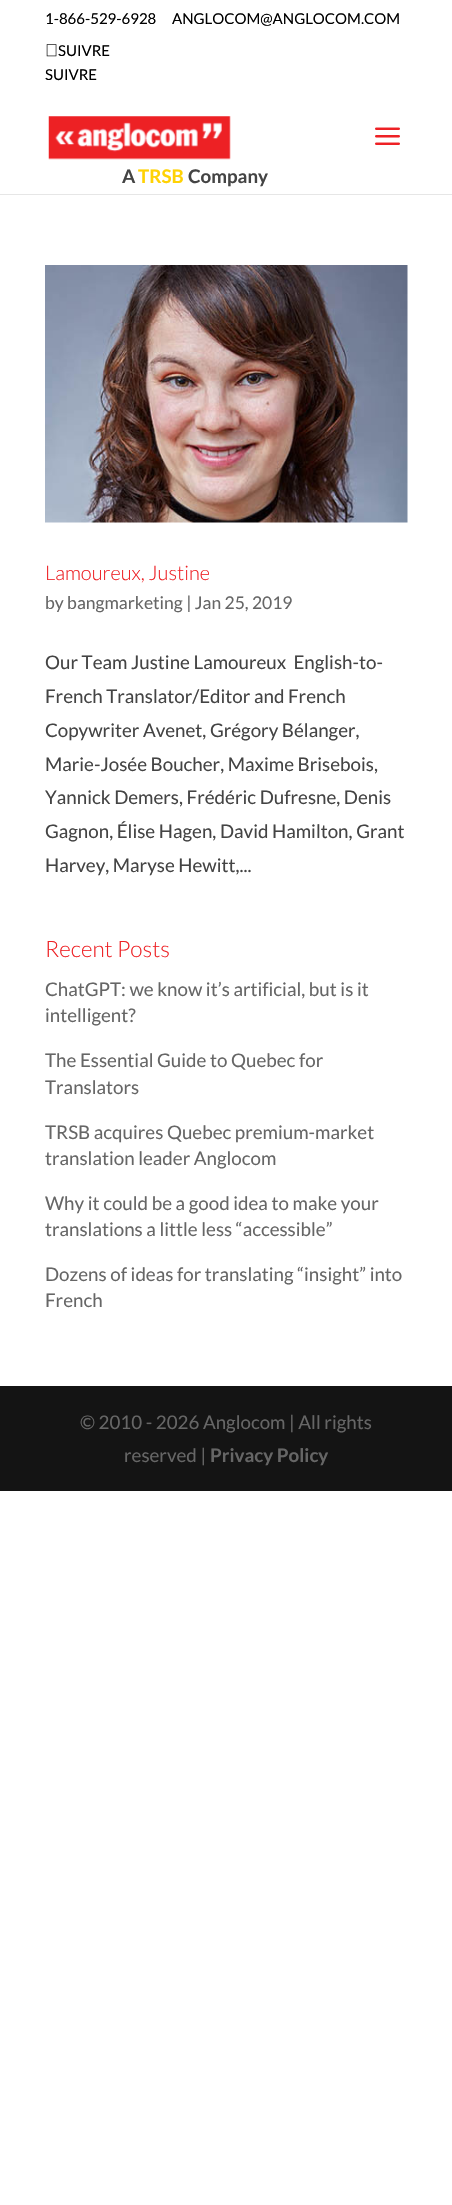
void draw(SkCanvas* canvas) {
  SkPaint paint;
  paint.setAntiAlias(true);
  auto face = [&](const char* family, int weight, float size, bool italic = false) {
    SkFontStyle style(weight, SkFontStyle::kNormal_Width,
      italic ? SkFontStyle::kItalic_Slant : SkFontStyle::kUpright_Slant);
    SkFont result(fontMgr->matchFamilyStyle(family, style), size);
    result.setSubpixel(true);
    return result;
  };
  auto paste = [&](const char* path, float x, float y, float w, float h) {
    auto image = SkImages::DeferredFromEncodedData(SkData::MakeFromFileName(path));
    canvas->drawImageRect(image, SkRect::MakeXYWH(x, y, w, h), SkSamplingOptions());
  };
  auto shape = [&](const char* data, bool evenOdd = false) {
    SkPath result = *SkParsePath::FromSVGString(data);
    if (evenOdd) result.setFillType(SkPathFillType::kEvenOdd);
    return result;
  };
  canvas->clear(0xffffffff);
  paste("img/1.png", 46, 44, 11, 13);
  paint.setColor(0xffe6e6e6);
  canvas->drawPath(shape("M0 194V195H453V95H452V194Z"), paint);
  paste("img/2.png", 375, 127, 25, 18);
  paste("img/3.png", 48, 116, 183, 44);
  paste("img/4.png", 45, 265, 363, 258);
  paint.setColor(0xff141414);
  canvas->drawRect(SkRect::MakeXYWH(0, 1386, 452, 105), paint);
  auto f0 = face("Lato", 400, 15);
  paint.setColor(0xff000000);
  {
    const struct { const char* s; float x, y; } items[] = {
      {"1-866-529-6928", 45, 24},
      {"ANGLOCOM@ANGLOCOM.COM", 172, 24},
      {"SUIVRE", 58, 56},
      {"SUIVRE", 45, 80},
    };
    for (auto [s, x, y] : items) {
      canvas->drawString(s, x, y, f0, paint);
    }
  }
  auto f1 = face("Lato", 700, 18.75f);
  paint.setColor(0xff444444);
  canvas->drawString("A", 122, 183, f1, paint);
  paint.setColor(0xffffd204);
  canvas->drawString("TRSB", 138, 183, f1, paint);
  paint.setColor(0xff444444);
  canvas->drawString("Company", 188, 183, f1, paint);
  auto f2 = face("Lato", 300, 20);
  paint.setColor(0xffee2125);
  canvas->drawString("Lamoureux, Justine", 45, 580, f2, paint);
  auto f3 = face("Lato", 400, 17.5f);
  paint.setColor(0xff666666);
  canvas->drawString("by bangmarketing | Jan 25, 2019", 45, 609, f3, paint);
  auto f4 = face("Lato", 400, 18.75f);
  paint.setColor(0xff444444);
  {
    const struct { const char* s; float x, y; } items[] = {
      {"Our Team Justine Lamoureux  English-to-", 45, 669},
      {"French Translator/Editor and French", 45, 703},
      {"Copywriter Avenet, Grégory Bélanger,", 45, 737},
      {"Marie-Josée Boucher, Maxime Brisebois,", 45, 771},
      {"Yannick Demers, Frédéric Dufresne, Denis", 45, 804},
      {"Gagnon, Élise Hagen, David Hamilton, Grant", 45, 838},
      {"Harvey, Maryse Hewitt,...", 45, 872},
    };
    for (auto [s, x, y] : items) {
      canvas->drawString(s, x, y, f4, paint);
    }
  }
  auto f5 = face("Lato", 300, 22.5f);
  paint.setColor(0xffee2125);
  canvas->drawString("Recent Posts", 45, 957, f5, paint);
  paint.setColor(0xff666666);
  {
    const struct { const char* s; float x, y; } items[] = {
      {"ChatGPT: we know it’s artificial, but is it", 45, 996},
      {"intelligent?", 45, 1022},
      {"The Essential Guide to Quebec for", 45, 1067},
      {"Translators", 45, 1094},
      {"TRSB acquires Quebec premium-market", 45, 1139},
      {"translation leader Anglocom", 45, 1165},
      {"Why it could be a good idea to make your", 45, 1210},
      {"translations a little less “accessible”", 45, 1236},
      {"Dozens of ideas for translating “insight” into", 45, 1281},
      {"French", 45, 1307},
      {"© 2010 - 2026 Anglocom | All rights", 80, 1429},
      {"reserved |", 124, 1462},
    };
    for (auto [s, x, y] : items) {
      canvas->drawString(s, x, y, f4, paint);
    }
  }
  canvas->drawString("Privacy Policy", 210, 1462, f1, paint);
}
